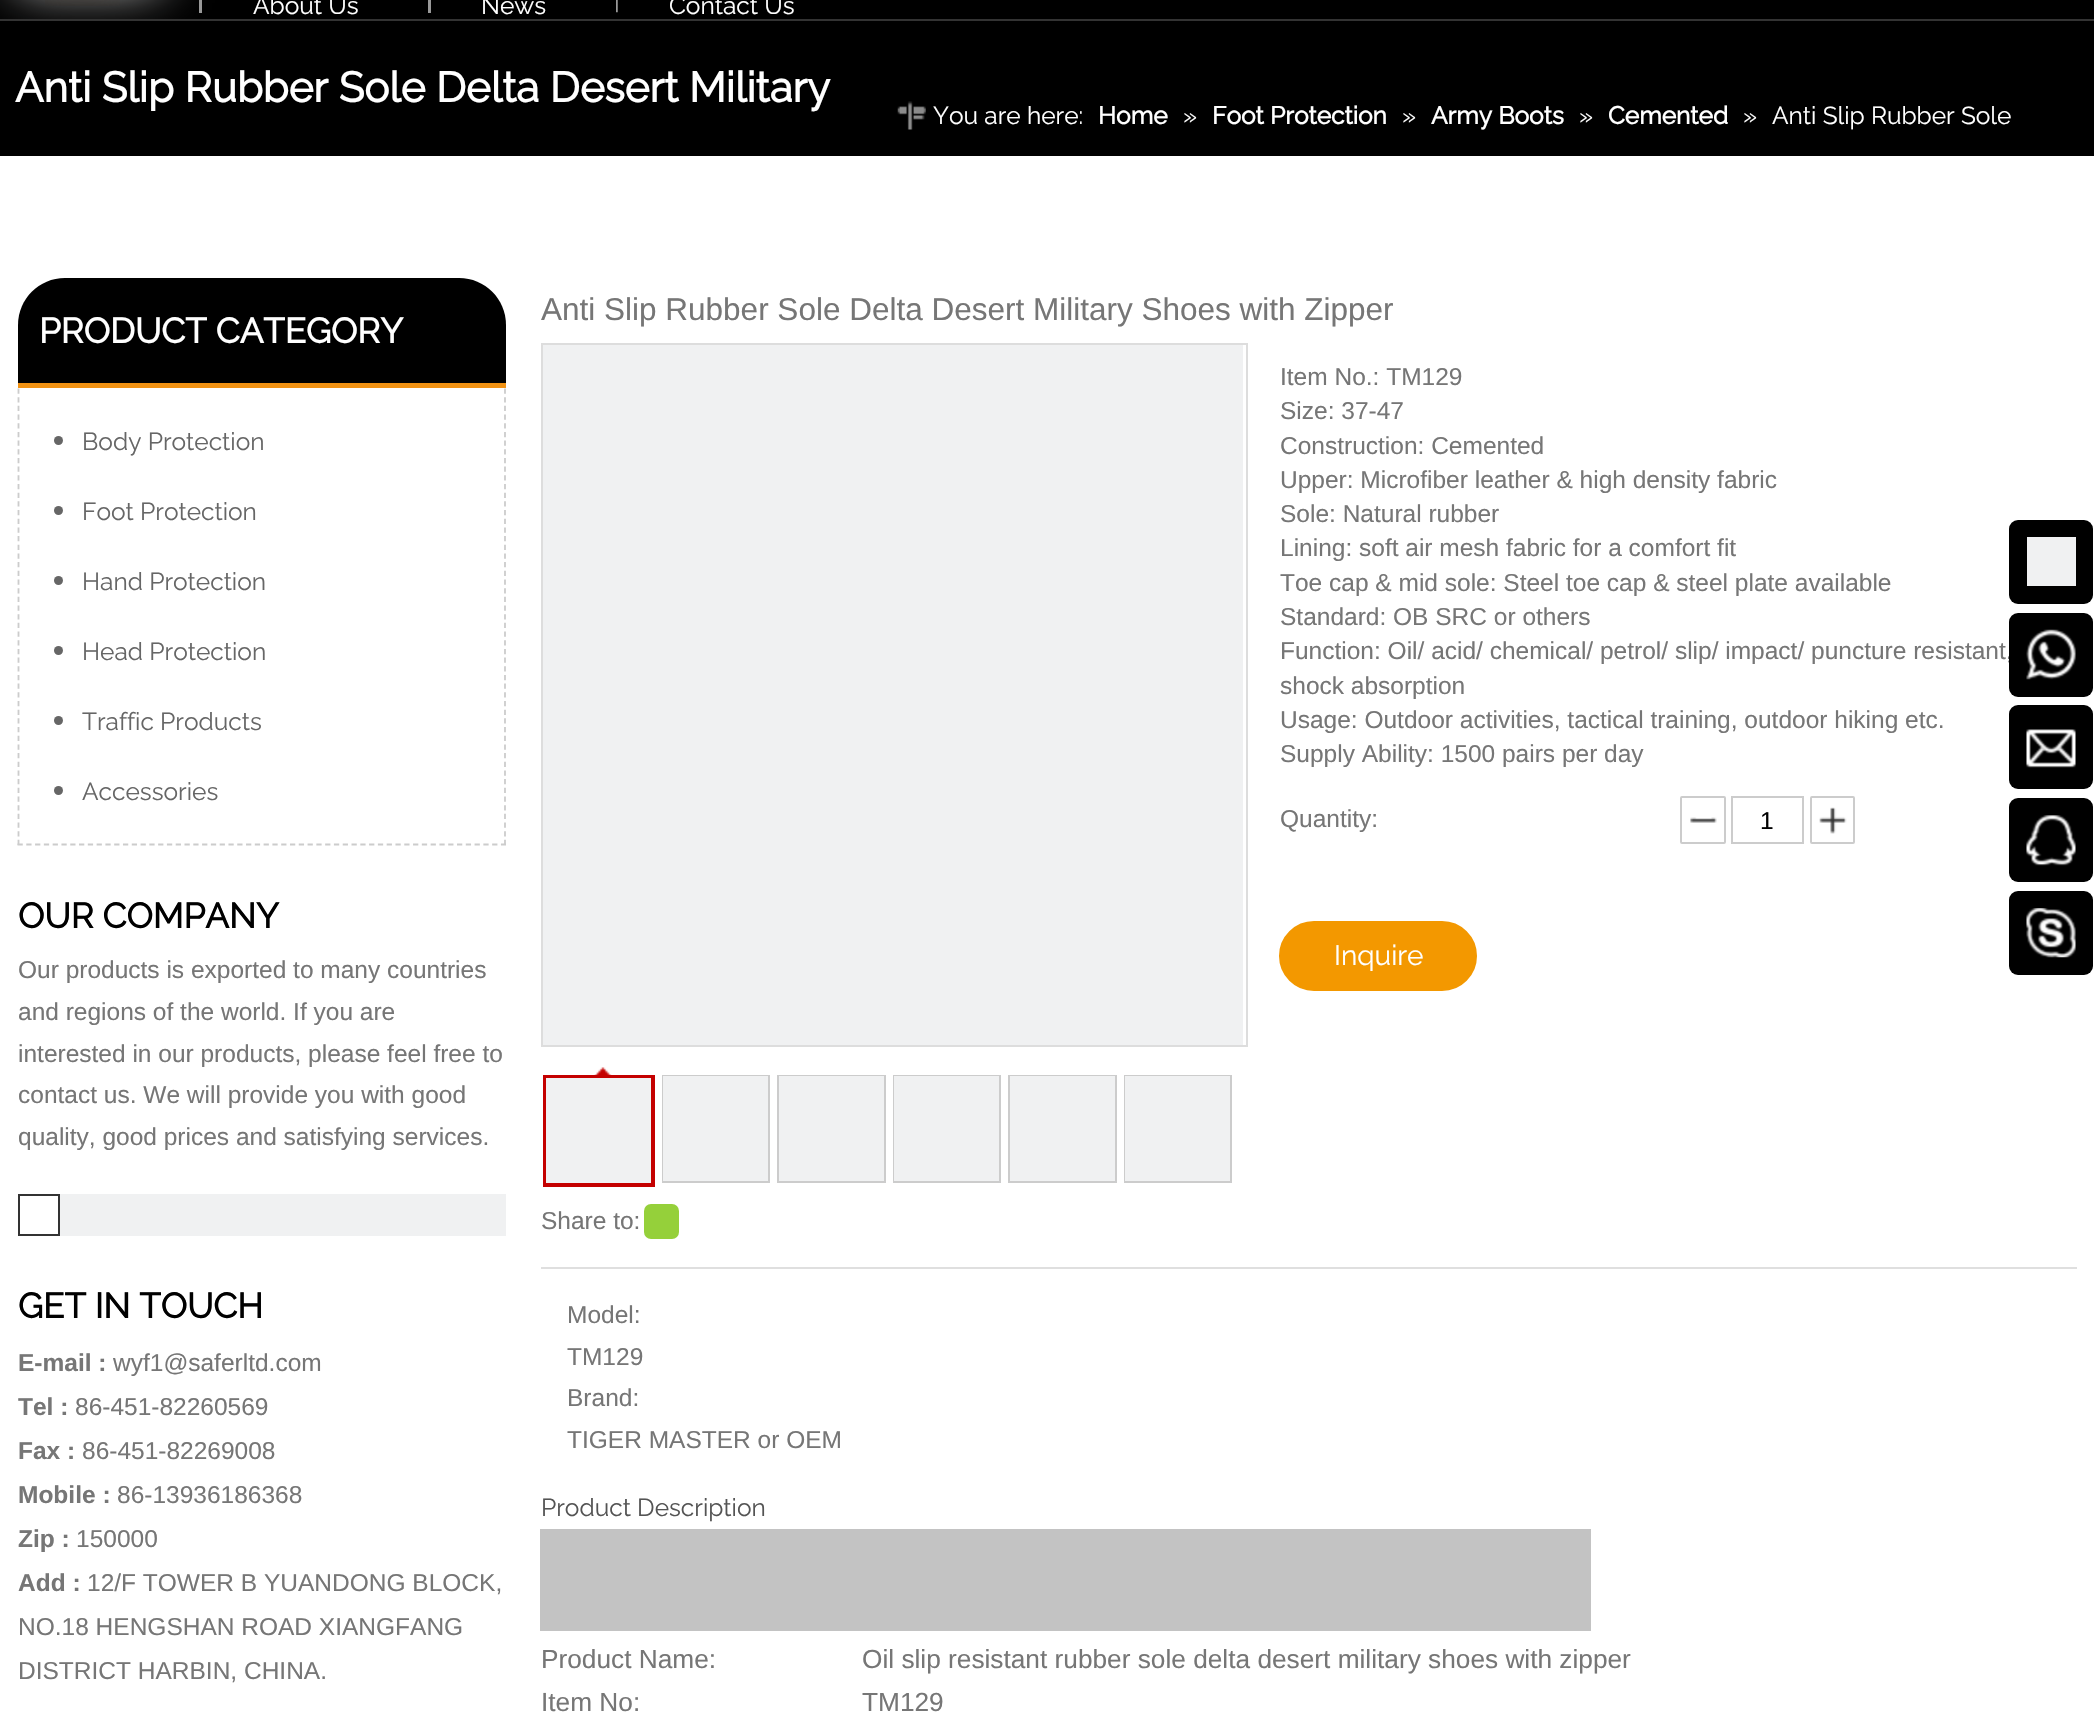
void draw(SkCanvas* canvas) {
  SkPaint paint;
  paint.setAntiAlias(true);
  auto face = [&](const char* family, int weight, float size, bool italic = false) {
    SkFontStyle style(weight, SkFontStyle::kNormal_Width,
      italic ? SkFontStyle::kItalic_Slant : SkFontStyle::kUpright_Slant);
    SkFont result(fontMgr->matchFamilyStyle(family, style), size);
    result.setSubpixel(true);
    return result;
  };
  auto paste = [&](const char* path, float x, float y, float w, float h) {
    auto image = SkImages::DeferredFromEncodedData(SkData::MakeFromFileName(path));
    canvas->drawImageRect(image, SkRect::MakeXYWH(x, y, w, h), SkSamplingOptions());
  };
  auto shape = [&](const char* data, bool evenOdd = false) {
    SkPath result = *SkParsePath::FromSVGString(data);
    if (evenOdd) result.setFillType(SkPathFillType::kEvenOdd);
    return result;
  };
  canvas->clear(0xffffffff);
  {
    const struct { float x, y, w, h; SkColor color; } items[] = {
      {0, 0, 2094, 19, 0xff000000},
      {0, 19, 2094, 2, 0xff333333},
      {0, 21, 2094, 135, 0xff000000},
    };
    for (auto [x, y, w, h, color] : items) {
      paint.setColor(color);
      canvas->drawRect(SkRect::MakeXYWH(x, y, w, h), paint);
    }
  }
  canvas->save();
  canvas->clipRect(SkRect::MakeXYWH(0, 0, 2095, 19));
  paint.setColor(0xfff0f1f2);
  paint.setMaskFilter(SkMaskFilter::MakeBlur(kNormal_SkBlurStyle, 26));
  canvas->drawRect(SkRect::MakeXYWH(18, -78, 140, 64), paint);
  paint.setMaskFilter(nullptr);
  canvas->restore();
  paste("img/1.png", 45, 0, 75, 6);
  paint.setColor(0xff999999);
  canvas->drawRect(SkRect::MakeXYWH(199, 0, 3, 13), paint);
  canvas->drawRect(SkRect::MakeXYWH(428, 0, 3, 13), paint);
  paste("img/2.png", 616, 0, 2, 13);
  paste("img/3.png", 897, 101, 29, 29);
  paint.setColor(0xff000000);
  canvas->drawPath(shape("M65 278H459C485 278 506 299 506 325V383H18V325C18 299 39 278 65 278Z"), paint);
  paint.setColor(0xfff19213);
  canvas->drawRect(SkRect::MakeXYWH(18, 383, 488, 5), paint);
  paint.setStroke(true);
  paint.setStrokeWidth(1.8f);
  paint.setColor(0xffcccccc);
  paint.setPathEffect(SkDashPathEffect::Make({{5.25f, 3.43f}}, 0));
  canvas->drawPath(shape("M505 388.5V845"), paint);
  paint.setPathEffect(nullptr);
  paint.setPathEffect(SkDashPathEffect::Make({{5.25f, 3.54f}}, 0));
  canvas->drawPath(shape("M17.5 844.5H506"), paint);
  paint.setPathEffect(nullptr);
  paint.setPathEffect(SkDashPathEffect::Make({{5.25f, 3.43f}}, 0));
  canvas->drawPath(shape("M18.5 388.5V845"), paint);
  paint.setPathEffect(nullptr);
  paint.setStroke(false);
  paint.setColor(0xff666666);
  canvas->drawCircle(58.5f, 440.5f, 4.5f, paint);
  canvas->drawCircle(58.5f, 510.5f, 4.5f, paint);
  canvas->drawCircle(58.5f, 580.5f, 4.5f, paint);
  canvas->drawCircle(58.5f, 650.5f, 4.5f, paint);
  canvas->drawCircle(58.5f, 720.5f, 4.5f, paint);
  canvas->drawCircle(58.5f, 790.5f, 4.5f, paint);
  paint.setColor(0xfff0f1f2);
  canvas->drawRect(SkRect::MakeXYWH(60, 1194, 446, 42), paint);
  paint.setStroke(true);
  paint.setStrokeWidth(2);
  paint.setColor(0xff333333);
  canvas->drawRect(SkRect::MakeXYWH(19, 1195, 40, 40), paint);
  paste("img/4.png", 1690, 817, 27, 6);
  paint.setColor(0xffcccccc);
  canvas->drawRoundRect(SkRect::MakeXYWH(1681, 797, 44, 46), 1, 1, paint);
  canvas->drawRect(SkRect::MakeXYWH(1732, 797, 71, 46), paint);
  paste("img/5.png", 1819, 807, 28, 27);
  canvas->drawRoundRect(SkRect::MakeXYWH(1811, 797, 43, 46), 1, 1, paint);
  paint.setStroke(false);
  paint.setColor(0xfff39800);
  canvas->drawRoundRect(SkRect::MakeXYWH(1280, 922, 196, 68), 34, 34, paint);
  paint.setStroke(true);
  canvas->drawRoundRect(SkRect::MakeXYWH(1280, 922, 196, 68), 34, 34, paint);
  paint.setColor(0xffdddddd);
  canvas->drawRect(SkRect::MakeXYWH(542, 344, 705, 702), paint);
  paint.setStroke(false);
  paint.setColor(0xfff0f1f2);
  canvas->drawRect(SkRect::MakeXYWH(543, 345, 700, 700), paint);
  paint.setStroke(true);
  paint.setStrokeWidth(4);
  paint.setColor(0xffc40000);
  canvas->drawRect(SkRect::MakeXYWH(545, 1077, 108, 108), paint);
  paste("img/6.png", 594, 1067, 18, 8);
  paint.setStroke(false);
  paint.setColor(0xfff0f1f2);
  canvas->drawRect(SkRect::MakeXYWH(546, 1078, 105, 105), paint);
  paint.setStroke(true);
  paint.setStrokeWidth(2);
  paint.setColor(0xffcccccc);
  canvas->drawRect(SkRect::MakeXYWH(663, 1076, 106, 106), paint);
  paint.setStroke(false);
  paint.setColor(0xfff0f1f2);
  canvas->drawRect(SkRect::MakeXYWH(663, 1076, 105, 105), paint);
  paint.setStroke(true);
  paint.setColor(0xffcccccc);
  canvas->drawRect(SkRect::MakeXYWH(778, 1076, 107, 106), paint);
  paint.setStroke(false);
  paint.setColor(0xfff0f1f2);
  canvas->drawRect(SkRect::MakeXYWH(779, 1076, 105, 105), paint);
  paint.setStroke(true);
  paint.setColor(0xffcccccc);
  canvas->drawRect(SkRect::MakeXYWH(894, 1076, 106, 106), paint);
  paint.setStroke(false);
  paint.setColor(0xfff0f1f2);
  canvas->drawRect(SkRect::MakeXYWH(894, 1076, 105, 105), paint);
  paint.setStroke(true);
  paint.setColor(0xffcccccc);
  canvas->drawRect(SkRect::MakeXYWH(1009, 1076, 107, 106), paint);
  paint.setStroke(false);
  paint.setColor(0xfff0f1f2);
  canvas->drawRect(SkRect::MakeXYWH(1010, 1076, 105, 105), paint);
  paint.setStroke(true);
  paint.setColor(0xffcccccc);
  canvas->drawRect(SkRect::MakeXYWH(1125, 1076, 106, 106), paint);
  paint.setStroke(false);
  paint.setColor(0xfff0f1f2);
  canvas->drawRect(SkRect::MakeXYWH(1125, 1076, 105, 105), paint);
  paint.setColor(0xff95d03a);
  canvas->drawRoundRect(SkRect::MakeXYWH(644, 1204, 35, 35), 7, 7, paint);
  paint.setColor(0xffdfdfdf);
  canvas->drawRect(SkRect::MakeXYWH(541, 1267, 1536, 2), paint);
  paint.setColor(0xffc3c3c3);
  canvas->drawRect(SkRect::MakeXYWH(540, 1529, 1051, 102), paint);
  paint.setColor(0xff000000);
  canvas->drawRoundRect(SkRect::MakeXYWH(2009, 520, 84, 84), 9, 9, paint);
  paint.setColor(0xfff0f1f2);
  canvas->drawRect(SkRect::MakeXYWH(2027, 537, 49, 49), paint);
  paint.setColor(0xff000000);
  canvas->drawRoundRect(SkRect::MakeXYWH(2009, 705, 84, 84), 9, 9, paint);
  paste("img/8.png", 2026, 729, 50, 39);
  canvas->drawRoundRect(SkRect::MakeXYWH(2009, 798, 84, 84), 9, 9, paint);
  paste("img/9.png", 2026, 815, 50, 51);
  canvas->drawRoundRect(SkRect::MakeXYWH(2009, 891, 84, 84), 9, 9, paint);
  paste("img/10.png", 2026, 908, 50, 50);
  auto f0 = face("Raleway", 100, 24.5f);
  paint.setColor(0xffffffff);
  {
    const struct { const char* s; float x, y; } items[] = {
      {"About Us", 253, 14},
      {"News", 481, 14},
      {"Contact Us", 669, 14},
    };
    for (auto [s, x, y] : items) {
      canvas->drawString(s, x, y, f0, paint);
    }
  }
  auto f1 = face("Raleway", 700, 42);
  canvas->drawString("Anti Slip Rubber Sole Delta Desert Military", 15, 102, f1, paint);
  canvas->drawString("You are here:", 933, 124, f0, paint);
  auto f2 = face("Raleway", 700, 24.5f);
  canvas->drawString("Home", 1098, 124, f2, paint);
  canvas->drawString("»", 1183, 124, f0, paint);
  canvas->drawString("Foot Protection", 1212, 124, f2, paint);
  canvas->drawString("»", 1402, 124, f0, paint);
  canvas->drawString("Army Boots", 1431, 124, f2, paint);
  canvas->drawString("»", 1579, 124, f0, paint);
  canvas->drawString("Cemented", 1608, 124, f2, paint);
  canvas->drawString("»", 1743, 124, f0, paint);
  canvas->drawString("Anti Slip Rubber Sole", 1772, 124, f0, paint);
  auto f3 = face("Raleway", 700, 35);
  canvas->drawString("PRODUCT CATEGORY", 39, 343, f3, paint);
  paint.setColor(0xff666666);
  {
    const struct { const char* s; float x, y; } items[] = {
      {"Body Protection", 82, 450},
      {"Foot Protection", 82, 520},
      {"Hand Protection", 82, 590},
      {"Head Protection", 82, 660},
      {"Traffic Products", 82, 730},
      {"Accessories", 82, 800},
    };
    for (auto [s, x, y] : items) {
      canvas->drawString(s, x, y, f0, paint);
    }
  }
  paint.setColor(0xff000000);
  canvas->drawString("OUR COMPANY", 18, 928, f3, paint);
  auto f4 = face("Liberation Sans", 400, 24.5f);
  paint.setColor(0xff767676);
  {
    const struct { const char* s; float x, y; } items[] = {
      {"Our products is exported to many countries", 18, 978},
      {"and regions of the world. If you are", 18, 1020},
      {"interested in our products, please feel free to", 18, 1062},
      {"contact us. We will provide you with good", 18, 1103},
      {"quality, good prices and satisfying services.", 18, 1145},
    };
    for (auto [s, x, y] : items) {
      canvas->drawString(s, x, y, f4, paint);
    }
  }
  paint.setColor(0xff000000);
  canvas->drawString("GET IN TOUCH", 18, 1318, f3, paint);
  auto f5 = face("Liberation Sans", 700, 24.5f);
  paint.setColor(0xff767676);
  canvas->drawString("E-mail :", 18, 1371, f5, paint);
  canvas->drawString("wyf1@saferltd.com", 113, 1371, f4, paint);
  canvas->save();
  canvas->clipRect(SkRect::MakeXYWH(18, 1341, 488, 353));
  canvas->drawString("Tel :", 18, 1415, f5, paint);
  canvas->restore();
  canvas->drawString("86-451-82260569", 75, 1415, f4, paint);
  canvas->drawString("Fax :", 18, 1459, f5, paint);
  canvas->drawString("86-451-82269008", 82, 1459, f4, paint);
  canvas->drawString("Mobile :", 18, 1503, f5, paint);
  canvas->drawString("86-13936186368", 117, 1503, f4, paint);
  canvas->drawString("Zip :", 18, 1547, f5, paint);
  canvas->drawString("150000", 76, 1547, f4, paint);
  canvas->drawString("Add :", 18, 1591, f5, paint);
  {
    const struct { const char* s; float x, y; } items[] = {
      {"12/F TOWER B YUANDONG BLOCK,", 87, 1591},
      {"NO.18 HENGSHAN ROAD XIANGFANG", 18, 1635},
      {"DISTRICT HARBIN, CHINA.", 18, 1679},
    };
    for (auto [s, x, y] : items) {
      canvas->drawString(s, x, y, f4, paint);
    }
  }
  auto f6 = face("Liberation Sans", 400, 31.5f);
  canvas->drawString("Anti Slip Rubber Sole Delta Desert Military Shoes with Zipper", 541, 320, f6, paint);
  {
    const struct { const char* s; float x, y; } items[] = {
      {"Item No.: TM129", 1280, 385},
      {"Size: 37-47", 1280, 419},
      {"Construction: Cemented", 1280, 454},
      {"Upper: Microfiber leather & high density fabric", 1280, 488},
      {"Sole: Natural rubber", 1280, 522},
      {"Lining: soft air mesh fabric for a comfort fit", 1280, 556},
      {"Toe cap & mid sole: Steel toe cap & steel plate available", 1280, 591},
      {"Standard: OB SRC or others", 1280, 625},
      {"Function: Oil/ acid/ chemical/ petrol/ slip/ impact/ puncture resistant,", 1280, 659},
      {"shock absorption", 1280, 694},
      {"Usage: Outdoor activities, tactical training, outdoor hiking etc.", 1280, 728},
      {"Supply Ability: 1500 pairs per day", 1280, 762},
      {"Quantity:", 1280, 827},
    };
    for (auto [s, x, y] : items) {
      canvas->drawString(s, x, y, f4, paint);
    }
  }
  paint.setColor(0xff000000);
  canvas->drawString("1", 1760, 829, f4, paint);
  auto f7 = face("Raleway", 100, 28);
  paint.setColor(0xffffffff);
  canvas->drawString("Inquire", 1334, 965, f7, paint);
  paint.setColor(0xff767676);
  {
    const struct { const char* s; float x, y; } items[] = {
      {"Share to:", 541, 1229},
      {"Model:", 567, 1323},
      {"TM129", 567, 1365},
      {"Brand:", 567, 1406},
      {"TIGER MASTER or OEM", 567, 1448},
    };
    for (auto [s, x, y] : items) {
      canvas->drawString(s, x, y, f4, paint);
    }
  }
  paint.setColor(0xff545454);
  canvas->drawString("Product Description", 541, 1516, f0, paint);
  auto f8 = face("Liberation Sans", 400, 26.25f);
  paint.setColor(0xff767676);
  {
    const struct { const char* s; float x, y; } items[] = {
      {"Product Name:", 541, 1668},
      {"Oil slip resistant rubber sole delta desert military shoes with zipper", 862, 1668},
      {"Item No:", 541, 1711},
      {"TM129", 862, 1711},
    };
    for (auto [s, x, y] : items) {
      canvas->drawString(s, x, y, f8, paint);
    }
  }
  paint.setColor(0xff000000);
  canvas->drawRoundRect(SkRect::MakeXYWH(2009, 613, 84, 84), 9, 9, paint);
  paste("img/7.png", 2026, 629, 50, 51);
}
